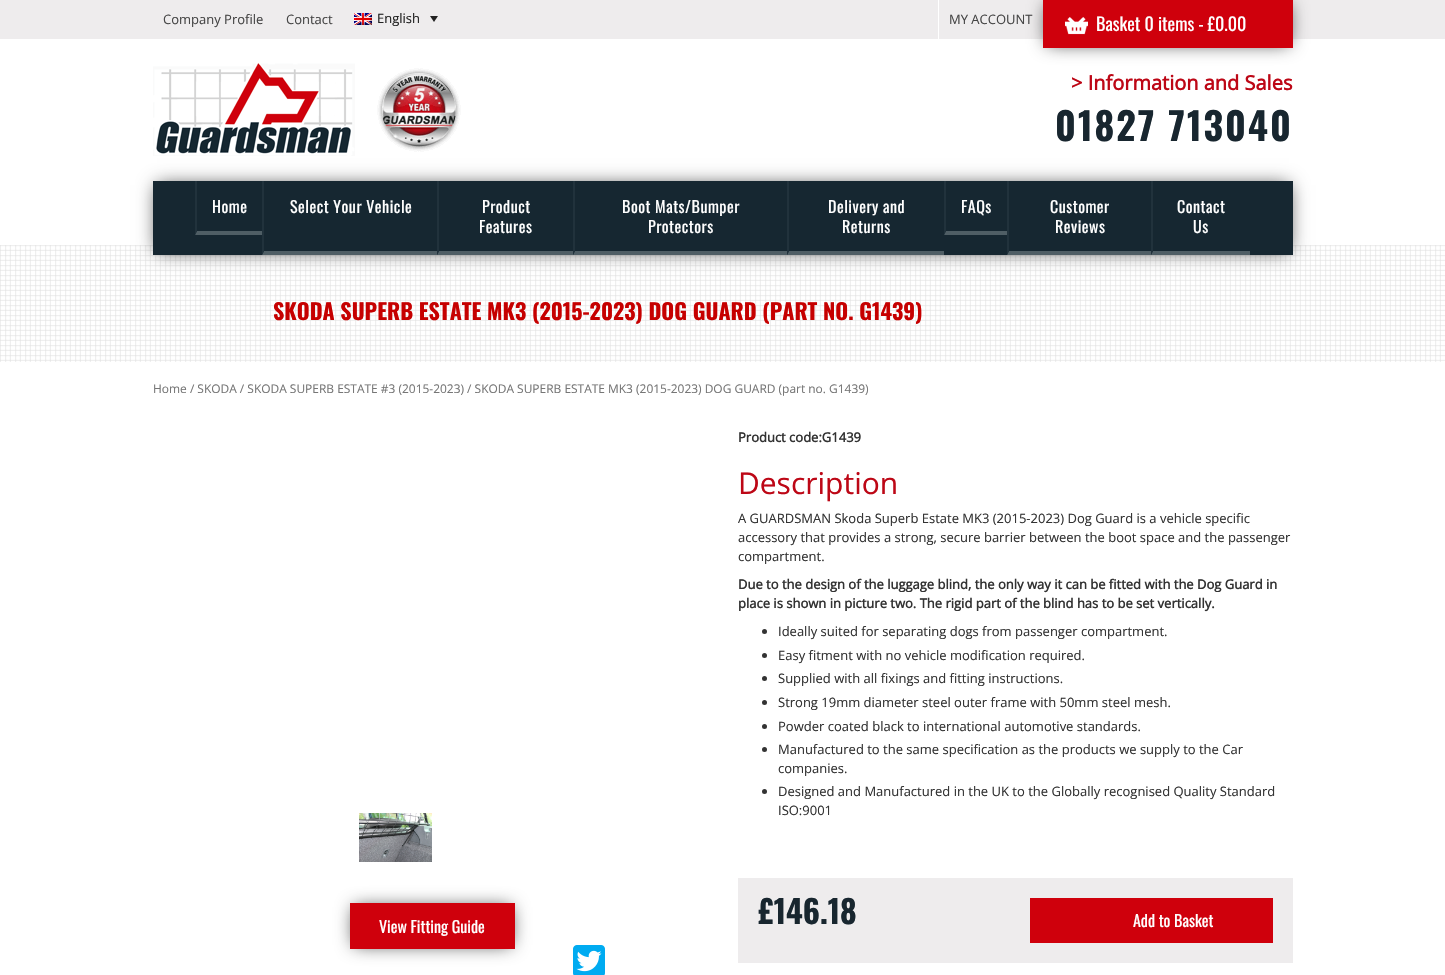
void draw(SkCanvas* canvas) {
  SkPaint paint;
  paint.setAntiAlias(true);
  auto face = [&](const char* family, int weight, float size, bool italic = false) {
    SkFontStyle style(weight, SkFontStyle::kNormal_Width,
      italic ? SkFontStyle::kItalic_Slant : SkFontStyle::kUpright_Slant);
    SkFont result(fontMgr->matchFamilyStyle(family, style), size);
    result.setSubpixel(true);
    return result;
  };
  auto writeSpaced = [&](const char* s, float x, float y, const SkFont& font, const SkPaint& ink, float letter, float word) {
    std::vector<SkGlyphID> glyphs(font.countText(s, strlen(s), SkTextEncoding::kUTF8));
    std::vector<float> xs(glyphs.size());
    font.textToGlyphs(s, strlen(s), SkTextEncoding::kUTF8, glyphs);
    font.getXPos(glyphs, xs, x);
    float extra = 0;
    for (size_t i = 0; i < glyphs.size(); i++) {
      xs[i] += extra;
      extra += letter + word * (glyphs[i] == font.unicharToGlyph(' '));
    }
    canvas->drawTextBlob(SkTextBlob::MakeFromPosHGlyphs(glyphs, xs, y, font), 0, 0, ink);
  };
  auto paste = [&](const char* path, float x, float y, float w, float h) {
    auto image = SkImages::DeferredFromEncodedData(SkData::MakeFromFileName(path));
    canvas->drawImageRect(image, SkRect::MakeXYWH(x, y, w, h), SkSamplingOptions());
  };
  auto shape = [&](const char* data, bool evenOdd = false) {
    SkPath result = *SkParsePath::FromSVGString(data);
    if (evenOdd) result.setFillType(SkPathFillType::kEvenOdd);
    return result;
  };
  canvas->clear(0xffffffff);
  paint.setColor(0xffeeeced);
  canvas->drawRect(SkRect::MakeXYWH(0, 0, 1445, 39), paint);
  paste("img/1.png", 354, 13, 18, 12);
  paint.setColor(0xff222222);
  canvas->drawPath(shape("M430 16H438L434 22Z"), paint);
  paint.setColor(0xffffffff);
  canvas->drawRect(SkRect::MakeXYWH(938, 0, 1, 39), paint);
  paint.setColor(0xbf000000);
  paint.setMaskFilter(SkMaskFilter::MakeBlur(kNormal_SkBlurStyle, 9));
  canvas->drawRect(SkRect::MakeXYWH(1047, 4, 242, 40), paint);
  paint.setMaskFilter(nullptr);
  paint.setColor(0xffcf000c);
  canvas->drawRect(SkRect::MakeXYWH(1043, 0, 250, 48), paint);
  paste("img/2.png", 1065, 17, 23, 18);
  paste("img/3.png", 153, 63, 202, 93);
  paste("img/4.png", 377, 68, 84, 84);
  paste("img/5.png", 0, 245, 1445, 117);
  paint.setColor(0xbf000000);
  paint.setMaskFilter(SkMaskFilter::MakeBlur(kNormal_SkBlurStyle, 9));
  canvas->drawRect(SkRect::MakeXYWH(157, 185, 1132, 66), paint);
  paint.setMaskFilter(nullptr);
  paint.setColor(0xff162731);
  canvas->drawRect(SkRect::MakeXYWH(153, 181, 1140, 74), paint);
  paint.setColor(0xff4f5e65);
  canvas->drawPath(shape("M262 235H195L197 231H262Z"), paint);
  paint.setColor(0xff21323c);
  canvas->drawPath(shape("M195 235V181H197V231Z"), paint);
  paint.setColor(0xff4f5e65);
  canvas->drawPath(shape("M437 255H262L264 251H437Z"), paint);
  paint.setColor(0xff21323c);
  canvas->drawPath(shape("M262 255V181H264V251Z"), paint);
  paint.setColor(0xff4f5e65);
  canvas->drawPath(shape("M573 255H437L439 251H573Z"), paint);
  paint.setColor(0xff21323c);
  canvas->drawPath(shape("M437 255V181H439V251Z"), paint);
  paint.setColor(0xff4f5e65);
  canvas->drawPath(shape("M787 255H573L575 251H787Z"), paint);
  paint.setColor(0xff21323c);
  canvas->drawPath(shape("M573 255V181H575V251Z"), paint);
  paint.setColor(0xff4f5e65);
  canvas->drawPath(shape("M944 255H787L789 251H944Z"), paint);
  paint.setColor(0xff21323c);
  canvas->drawPath(shape("M787 255V181H789V251Z"), paint);
  paint.setColor(0xff4f5e65);
  canvas->drawPath(shape("M1007 235H944L946 231H1007Z"), paint);
  paint.setColor(0xff21323c);
  canvas->drawPath(shape("M944 235V181H946V231Z"), paint);
  paint.setColor(0xff4f5e65);
  canvas->drawPath(shape("M1151 255H1007L1009 251H1151Z"), paint);
  paint.setColor(0xff21323c);
  canvas->drawPath(shape("M1007 255V181H1009V251Z"), paint);
  paint.setColor(0xff4f5e65);
  canvas->drawPath(shape("M1250 255H1151L1153 251H1250Z"), paint);
  paint.setColor(0xff21323c);
  canvas->drawPath(shape("M1151 255V181H1153V251Z"), paint);
  paint.setColor(0xff333333);
  canvas->drawCircle(764.5f, 631.5f, 2.5f, paint);
  canvas->drawCircle(764.5f, 655.5f, 2.5f, paint);
  canvas->drawCircle(764.5f, 678.5f, 2.5f, paint);
  canvas->drawCircle(764.5f, 702.5f, 2.5f, paint);
  canvas->drawCircle(764.5f, 726.5f, 2.5f, paint);
  canvas->drawCircle(764.5f, 749.5f, 2.5f, paint);
  canvas->drawCircle(764.5f, 791.5f, 2.5f, paint);
  paste("img/6.png", 359, 813, 73, 49);
  paint.setColor(0xbf000000);
  paint.setMaskFilter(SkMaskFilter::MakeBlur(kNormal_SkBlurStyle, 9));
  canvas->drawRect(SkRect::MakeXYWH(354, 907, 157, 38), paint);
  paint.setMaskFilter(nullptr);
  paint.setColor(0xffcf000c);
  canvas->drawRect(SkRect::MakeXYWH(350, 903, 165, 46), paint);
  paste("img/7.png", 573, 945, 32, 30);
  paint.setColor(0xffeeeced);
  canvas->drawRect(SkRect::MakeXYWH(738, 878, 555, 85), paint);
  paint.setColor(0xffcf000c);
  canvas->drawRect(SkRect::MakeXYWH(1030, 898, 243, 45), paint);
  auto f0 = face("Open Sans", 400, 13);
  paint.setColor(0xff464646);
  canvas->drawString("Company Profile", 163, 24, f0, paint);
  canvas->drawString("Contact", 286, 24, f0, paint);
  paint.setColor(0xff222222);
  canvas->drawString("English", 377, 23, f0, paint);
  paint.setColor(0xff464646);
  canvas->drawString("MY ACCOUNT", 949, 24, f0, paint);
  auto f1 = face("Oswald", 400, 18);
  paint.setColor(0xffffffff);
  canvas->drawString("Basket 0 items - £0.00", 1096, 31, f1, paint);
  auto f2 = face("Open Sans", 700, 20);
  paint.setColor(0xffbd0716);
  canvas->drawString("> Information and Sales", 1071, 90, f2, paint);
  auto f3 = face("Oswald", 700, 38);
  paint.setColor(0xff18262f);
  writeSpaced("01827 713040", 1055, 141, f3, paint, 2, 0);
  auto f4 = face("Oswald", 400, 16);
  paint.setColor(0xffffffff);
  {
    const struct { const char* s; float x, y; } items[] = {
      {"Home", 212, 213},
      {"Select Your Vehicle", 290, 213},
      {"Product", 482, 213},
      {"Features", 479, 233},
      {"Boot Mats/Bumper", 622, 213},
      {"Protectors", 648, 233},
      {"Delivery and", 828, 213},
      {"Returns", 842, 233},
      {"FAQs", 961, 213},
      {"Customer", 1050, 213},
      {"Reviews", 1055, 233},
      {"Contact", 1177, 213},
      {"Us", 1193, 233},
    };
    for (auto [s, x, y] : items) {
      writeSpaced(s, x, y, f4, paint, 0.5f, 0);
    }
  }
  auto f5 = face("Oswald", 700, 22);
  paint.setColor(0xffc60000);
  canvas->drawString("SKODA SUPERB ESTATE MK3 (2015-2023) DOG GUARD (PART NO. G1439)", 273, 320, f5, paint);
  auto f6 = face("Open Sans", 400, 11.95f);
  paint.setColor(0xff767676);
  canvas->drawString("Home / SKODA / SKODA SUPERB ESTATE #3 (2015-2023) / SKODA SUPERB ESTATE MK3 (2015-2023) DOG GUARD (part no. G1439)", 153, 393, f6, paint);
  auto f7 = face("Open Sans", 700, 13);
  paint.setColor(0xff333333);
  canvas->drawString("Product code:G1439", 738, 442, f7, paint);
  auto f8 = face("Open Sans", 400, 30);
  paint.setColor(0xffbd0716);
  canvas->drawString("Description", 738, 494, f8, paint);
  paint.setColor(0xff333333);
  {
    const struct { const char* s; float x, y; } items[] = {
      {"A GUARDSMAN Skoda Superb Estate MK3 (2015-2023) Dog Guard is a vehicle specific", 738, 523},
      {"accessory that provides a strong, secure barrier between the boot space and the passenger", 738, 542},
      {"compartment.", 738, 561},
    };
    for (auto [s, x, y] : items) {
      canvas->drawString(s, x, y, f0, paint);
    }
  }
  canvas->drawString("Due to the design of the luggage blind, the only way it can be fitted with the Dog Guard in", 738, 589, f7, paint);
  canvas->drawString("place is shown in picture two. The rigid part of the blind has to be set vertically.", 738, 608, f7, paint);
  {
    const struct { const char* s; float x, y; } items[] = {
      {"Ideally suited for separating dogs from passenger compartment.", 778, 636},
      {"Easy fitment with no vehicle modification required.", 778, 660},
      {"Supplied with all fixings and fitting instructions.", 778, 683},
      {"Strong 19mm diameter steel outer frame with 50mm steel mesh.", 778, 707},
      {"Powder coated black to international automotive standards.", 778, 731},
      {"Manufactured to the same specification as the products we supply to the Car", 778, 754},
      {"companies.", 778, 773},
      {"Designed and Manufactured in the UK to the Globally recognised Quality Standard", 778, 796},
      {"ISO:9001", 778, 815},
    };
    for (auto [s, x, y] : items) {
      canvas->drawString(s, x, y, f0, paint);
    }
  }
  paint.setColor(0xffffffff);
  canvas->drawString("View Fitting Guide", 379, 933, f4, paint);
  auto f9 = face("Oswald", 700, 32);
  paint.setColor(0xff18262f);
  canvas->drawString("£146.18", 758, 924, f9, paint);
  paint.setColor(0xffffffff);
  canvas->drawString("Add to Basket", 1133, 927, f4, paint);
}
